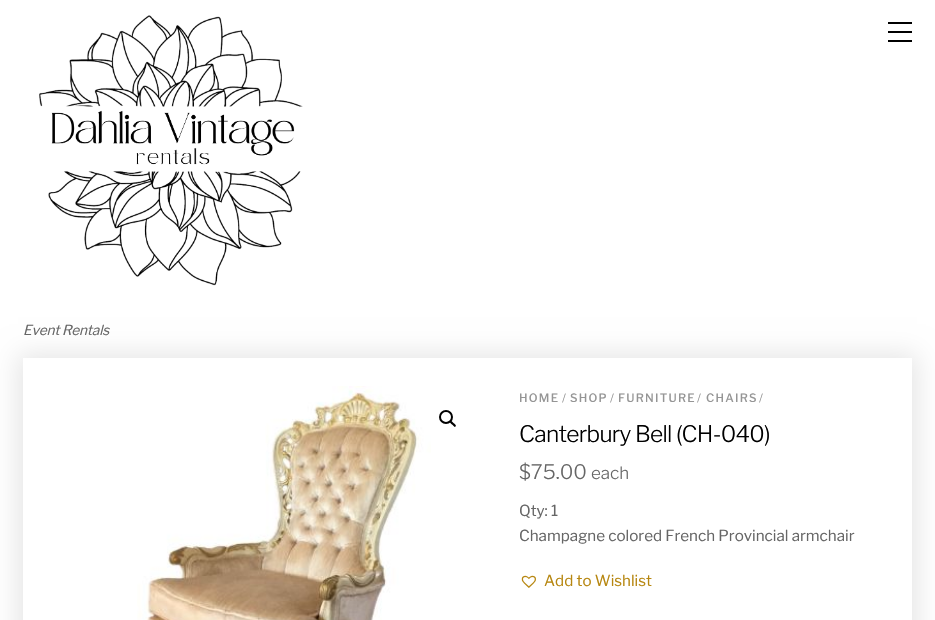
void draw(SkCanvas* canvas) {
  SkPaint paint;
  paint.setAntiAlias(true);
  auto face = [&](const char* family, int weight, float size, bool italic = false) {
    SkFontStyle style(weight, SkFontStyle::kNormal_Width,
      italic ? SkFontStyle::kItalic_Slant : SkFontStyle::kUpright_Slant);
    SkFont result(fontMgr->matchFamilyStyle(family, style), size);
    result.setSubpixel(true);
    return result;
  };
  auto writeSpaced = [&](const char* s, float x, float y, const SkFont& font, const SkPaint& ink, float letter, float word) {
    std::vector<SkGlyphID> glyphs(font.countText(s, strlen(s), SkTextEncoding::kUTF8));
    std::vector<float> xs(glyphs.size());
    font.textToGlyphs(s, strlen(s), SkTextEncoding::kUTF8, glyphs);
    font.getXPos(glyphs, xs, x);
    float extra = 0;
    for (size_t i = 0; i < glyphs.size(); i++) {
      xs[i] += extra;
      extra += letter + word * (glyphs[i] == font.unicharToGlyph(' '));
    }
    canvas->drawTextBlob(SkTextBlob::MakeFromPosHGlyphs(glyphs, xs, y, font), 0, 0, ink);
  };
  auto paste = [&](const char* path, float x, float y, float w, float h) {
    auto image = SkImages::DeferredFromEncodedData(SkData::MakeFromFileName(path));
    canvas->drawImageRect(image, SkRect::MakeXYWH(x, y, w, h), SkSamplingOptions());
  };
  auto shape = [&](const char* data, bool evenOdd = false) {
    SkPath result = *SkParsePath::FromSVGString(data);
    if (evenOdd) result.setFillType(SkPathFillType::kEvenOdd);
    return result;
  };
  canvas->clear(0xffffffff);
  {
    const struct { float x, y, w, h; SkColor color; } items[] = {
      {888, 22, 24, 2, 0xff000000},
      {888, 40, 24, 2, 0xff000000},
      {888, 31, 24, 2, 0xff000000},
    };
    for (auto [x, y, w, h, color] : items) {
      paint.setColor(color);
      canvas->drawRect(SkRect::MakeXYWH(x, y, w, h), paint);
    }
  }
  paste("img/1.png", 39, 15, 264, 271);
  canvas->save();
  canvas->clipPath(shape("M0 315H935V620H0ZM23 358H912V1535H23Z", true), true);
  paint.setColor(0x1a000000);
  paint.setMaskFilter(SkMaskFilter::MakeBlur(kNormal_SkBlurStyle, 12.5f));
  canvas->drawRect(SkRect::MakeXYWH(18, 354, 899, 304), paint);
  paint.setMaskFilter(nullptr);
  canvas->restore();
  paste("img/2.png", 137, 386, 294, 234);
  paint.setStroke(true);
  paint.setStrokeWidth(2);
  paint.setColor(0xff000000);
  canvas->drawCircle(446, 417, 6, paint);
  paint.setStroke(false);
  canvas->drawPath(shape("M450 421C451 420 453 422.5 453.5 423C454 423.5 457 425.5 455.5 426.5C454.5 428 453 425 452 424.5C451.5 424 449 422 450 421Z"), paint);
  paste("img/3.png", 521, 575, 15, 13);
  auto f0 = face("Libre Franklin", 400, 13.75f, true);
  paint.setColor(0xff666666);
  writeSpaced("Event Rentals", 23, 335, f0, paint, -0.25f, 0);
  auto f1 = face("Libre Franklin", 500, 11.5f);
  paint.setColor(0xff959595);
  writeSpaced("HOME", 519, 402, f1, paint, 1.25f, 0);
  auto f2 = face("Libre Franklin", 300, 11.5f);
  writeSpaced("/", 562, 402, f2, paint, 1.25f, 0);
  writeSpaced("SHOP", 570, 402, f1, paint, 1.25f, 0);
  writeSpaced("/", 610, 402, f2, paint, 1.25f, 0);
  writeSpaced("FURNITURE", 618, 402, f1, paint, 1.25f, 0);
  writeSpaced("/", 697, 402, f2, paint, 1.25f, 0);
  writeSpaced("CHAIRS", 706, 402, f1, paint, 1.25f, 0);
  writeSpaced("/", 759, 402, f2, paint, 1.25f, 0);
  auto f3 = face("Libre Franklin", 300, 22.75f);
  paint.setColor(0xff000000);
  writeSpaced("Canterbury Bell (CH-040)", 519, 442, f3, paint, -0.7f, 0);
  auto f4 = face("Libre Franklin", 300, 20);
  paint.setColor(0xff666666);
  canvas->drawString("$75.00", 519, 479, f4, paint);
  auto f5 = face("Libre Franklin", 300, 17);
  canvas->drawString("each", 591, 479, f5, paint);
  auto f6 = face("Libre Franklin", 400, 15.2f);
  canvas->drawString("Qty: 1", 519, 516, f6, paint);
  canvas->drawString("Champagne colored French Provincial armchair", 519, 541, f6, paint);
  paint.setColor(0xffb78711);
  canvas->drawString("Add to Wishlist", 544, 586, f6, paint);
}
